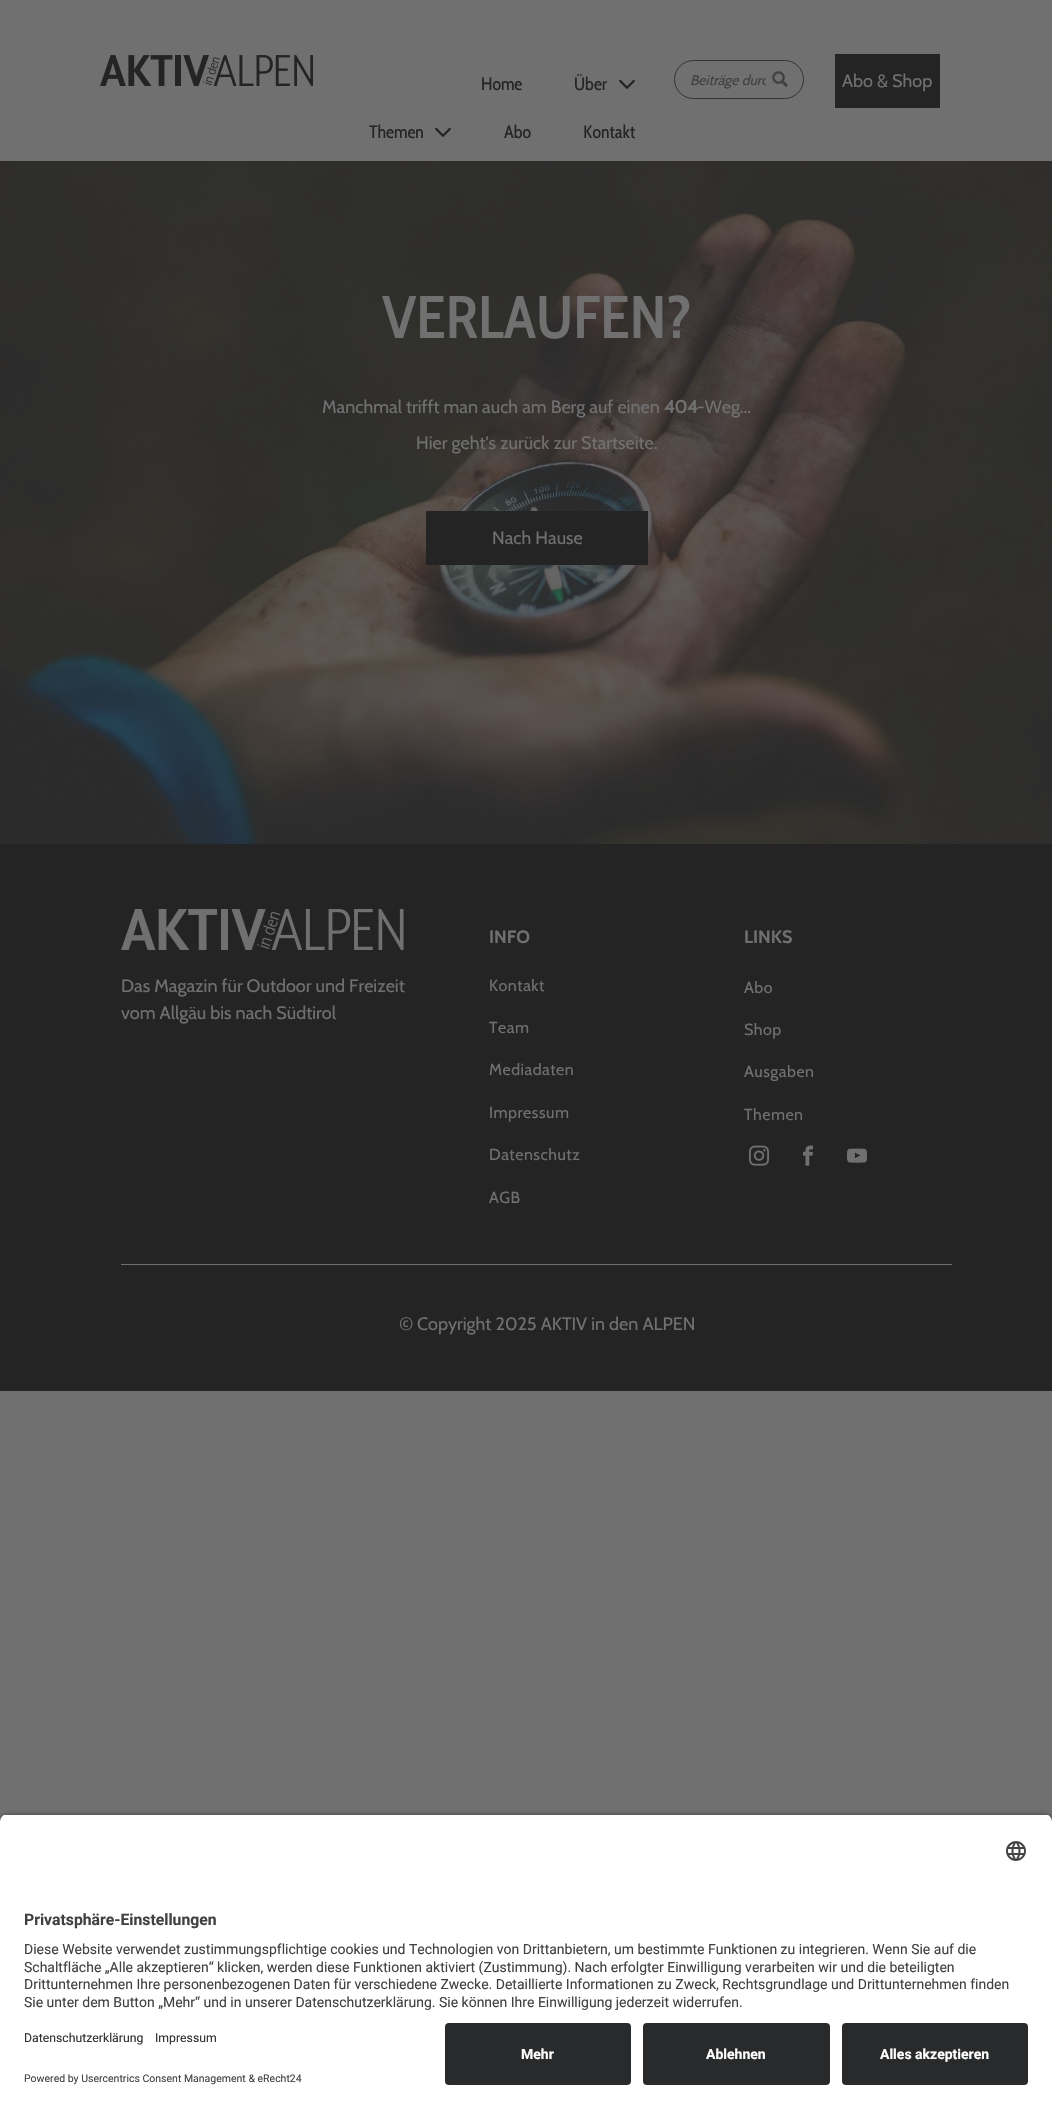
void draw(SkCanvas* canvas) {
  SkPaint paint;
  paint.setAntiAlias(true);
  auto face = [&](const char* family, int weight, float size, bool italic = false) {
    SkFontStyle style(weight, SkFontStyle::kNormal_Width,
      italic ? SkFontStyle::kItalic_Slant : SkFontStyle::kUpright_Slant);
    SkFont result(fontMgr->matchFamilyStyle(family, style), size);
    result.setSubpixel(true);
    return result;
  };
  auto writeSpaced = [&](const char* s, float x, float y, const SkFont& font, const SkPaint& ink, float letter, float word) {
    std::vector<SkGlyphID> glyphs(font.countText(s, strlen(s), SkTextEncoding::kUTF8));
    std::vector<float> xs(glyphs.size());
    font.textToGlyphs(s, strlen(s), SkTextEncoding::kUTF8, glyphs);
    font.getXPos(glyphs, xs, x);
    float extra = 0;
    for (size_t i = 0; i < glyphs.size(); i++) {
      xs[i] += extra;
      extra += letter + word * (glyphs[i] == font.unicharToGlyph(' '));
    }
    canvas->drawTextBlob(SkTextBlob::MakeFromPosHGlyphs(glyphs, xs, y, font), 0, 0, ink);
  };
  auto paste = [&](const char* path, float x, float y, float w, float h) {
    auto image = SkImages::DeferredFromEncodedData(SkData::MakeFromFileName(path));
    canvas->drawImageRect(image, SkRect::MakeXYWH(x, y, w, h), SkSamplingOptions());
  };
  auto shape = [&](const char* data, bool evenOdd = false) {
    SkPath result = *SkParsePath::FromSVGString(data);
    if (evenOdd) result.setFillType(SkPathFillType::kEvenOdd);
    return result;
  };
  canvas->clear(0xff707070);
  paste("img/1.png", 100, 55, 213, 31);
  paste("img/2.png", 619, 79, 16, 10);
  paste("img/2.png", 435, 127, 16, 10);
  paint.setStroke(true);
  paint.setStrokeWidth(1);
  paint.setColor(0xff333333);
  canvas->drawRoundRect(SkRect::MakeXYWH(674.5f, 60.5f, 129, 38), 19, 19, paint);
  paste("img/3.png", 772, 71, 16, 16);
  paint.setStroke(false);
  paint.setColor(0xff242424);
  canvas->drawRect(SkRect::MakeXYWH(835, 54, 105, 54), paint);
  paste("img/4.png", 0, 161, 1052, 683);
  canvas->drawRect(SkRect::MakeXYWH(426, 511, 222, 54), paint);
  canvas->drawRect(SkRect::MakeXYWH(0, 844, 1052, 547), paint);
  paste("img/5.png", 121, 909, 283, 41);
  paste("img/6.png", 749, 1145, 20, 21);
  paste("img/7.png", 803, 1145, 10, 21);
  paste("img/8.png", 847, 1148, 20, 15);
  paint.setColor(0xff707070);
  canvas->drawRect(SkRect::MakeXYWH(121, 1264, 831, 1), paint);
  paint.setColor(0xcc000000);
  paint.setMaskFilter(SkMaskFilter::MakeBlur(kNormal_SkBlurStyle, 3.5f));
  canvas->drawRoundRect(SkRect::MakeXYWH(0, 1817, 1052, 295), 8, 8, paint);
  paint.setMaskFilter(nullptr);
  canvas->save();
  canvas->clipPath(shape("M8 1814H1044C1048.5 1814 1052 1817.5 1052 1822V2015H0V1822C0 1817.5 3.5 1814 8 1814Z"), true);
  paint.setColor(0xffffffff);
  canvas->drawRect(SkRect::MakeXYWH(0, 1815, 1052, 200), paint);
  canvas->restore();
  paste("img/9.png", 1006, 1841, 20, 20);
  canvas->drawRect(SkRect::MakeXYWH(0, 2015, 1052, 94), paint);
  paint.setColor(0xff292a2b);
  canvas->drawRoundRect(SkRect::MakeXYWH(445, 2023, 186, 62), 4, 4, paint);
  canvas->drawRoundRect(SkRect::MakeXYWH(643, 2023, 187, 62), 4, 4, paint);
  canvas->drawRoundRect(SkRect::MakeXYWH(842, 2023, 186, 62), 4, 4, paint);
  auto f0 = face("Cabin Condensed", 400, 18);
  paint.setColor(0xff242424);
  {
    const struct { const char* s; float x, y; } items[] = {
      {"Home", 481, 90},
      {"Über", 574, 90},
      {"Themen", 369, 138},
      {"Abo", 504, 138},
      {"Kontakt", 583, 138},
    };
    for (auto [s, x, y] : items) {
      canvas->drawString(s, x, y, f0, paint);
    }
  }
  canvas->save();
  canvas->clipRect(SkRect::MakeXYWH(690, 71, 76, 18));
  auto f1 = face("Cabin", 400, 14, true);
  paint.setColor(0xff424141);
  canvas->drawString("Beiträge durc", 690, 85, f1, paint);
  canvas->restore();
  auto f2 = face("Cabin", 400, 18);
  paint.setColor(0xff707070);
  canvas->drawString("Abo & Shop", 842, 87, f2, paint);
  auto f3 = face("Cabin Condensed", 600, 60);
  canvas->drawString("VERLAUFEN?", 382, 338, f3, paint);
  canvas->drawString("Manchmal trifft man auch am Berg auf einen", 322, 413, f2, paint);
  auto f4 = face("Cabin", 700, 18);
  canvas->drawString("404", 664, 413, f4, paint);
  {
    const struct { const char* s; float x, y; } items[] = {
      {"-Weg...", 697, 413},
      {"Hier geht's zurück zur Startseite.", 416, 449},
      {"Nach Hause", 492, 544},
      {"Das Magazin für Outdoor und Freizeit", 121, 992},
      {"vom Allgäu bis nach Südtirol", 121, 1019},
    };
    for (auto [s, x, y] : items) {
      canvas->drawString(s, x, y, f2, paint);
    }
  }
  auto f5 = face("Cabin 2", 700, 18);
  canvas->drawString("INFO", 489, 943, f5, paint);
  auto f6 = face("Cabin", 400, 16);
  {
    const struct { const char* s; float x, y; } items[] = {
      {"Kontakt", 489, 991},
      {"Team", 489, 1033},
      {"Mediadaten", 489, 1075},
      {"Impressum", 489, 1118},
      {"Datenschutz", 489, 1160},
      {"AGB", 489, 1203},
    };
    for (auto [s, x, y] : items) {
      writeSpaced(s, x, y, f6, paint, 0.5f, 0);
    }
  }
  canvas->drawString("LINKS", 744, 943, f5, paint);
  {
    const struct { const char* s; float x, y; } items[] = {
      {"Abo", 744, 993},
      {"Shop", 744, 1035},
      {"Ausgaben", 744, 1077},
      {"Themen", 744, 1120},
    };
    for (auto [s, x, y] : items) {
      writeSpaced(s, x, y, f6, paint, 0.5f, 0);
    }
  }
  auto f7 = face("Cabin", 400, 20);
  canvas->drawString("©", 399, 1331, f7, paint);
  canvas->drawString("Copyright 2025 AKTIV in den ALPEN", 417, 1330, f2, paint);
  auto f8 = face("Roboto", 700, 15.75f);
  paint.setColor(0xff424141);
  canvas->drawString("Privatsphäre-Einstellungen", 24, 1925, f8, paint);
  auto f9 = face("Roboto", 400, 14);
  {
    const struct { const char* s; float x, y; } items[] = {
      {"Diese Website verwendet zustimmungspflichtige cookies und Technologien von Drittanbietern, um bestimmte Funktionen zu integrieren. Wenn Sie auf die", 24, 1954},
      {"Schaltfläche „Alle akzeptieren“ klicken, werden diese Funktionen aktiviert (Zustimmung). Nach erfolgter Einwilligung verarbeiten wir und die beteiligten", 24, 1972},
      {"Drittunternehmen Ihre personenbezogenen Daten für verschiedene Zwecke. Detaillierte Informationen zu Zweck, Rechtsgrundlage und Drittunternehmen finden", 24, 1989},
      {"Sie unter dem Button „Mehr“ und in unserer Datenschutzerklärung. Sie können Ihre Einwilligung jederzeit widerrufen.", 24, 2007},
    };
    for (auto [s, x, y] : items) {
      canvas->drawString(s, x, y, f9, paint);
    }
  }
  auto f10 = face("Roboto", 400, 12.25f);
  paint.setColor(0xff303030);
  canvas->drawString("Datenschutzerklärung", 24, 2042, f10, paint);
  canvas->drawString("Impressum", 155, 2042, f10, paint);
  auto f11 = face("Roboto", 400, 10.5f);
  paint.setColor(0xff424141);
  canvas->drawString("Powered by Usercentrics Consent Management & eRecht24", 24, 2082, f11, paint);
  auto f12 = face("Roboto", 700, 14);
  paint.setColor(0xffffffff);
  {
    const struct { const char* s; float x, y; } items[] = {
      {"Mehr", 521, 2059},
      {"Ablehnen", 706, 2059},
      {"Alles akzeptieren", 880, 2059},
    };
    for (auto [s, x, y] : items) {
      canvas->drawString(s, x, y, f12, paint);
    }
  }
}
